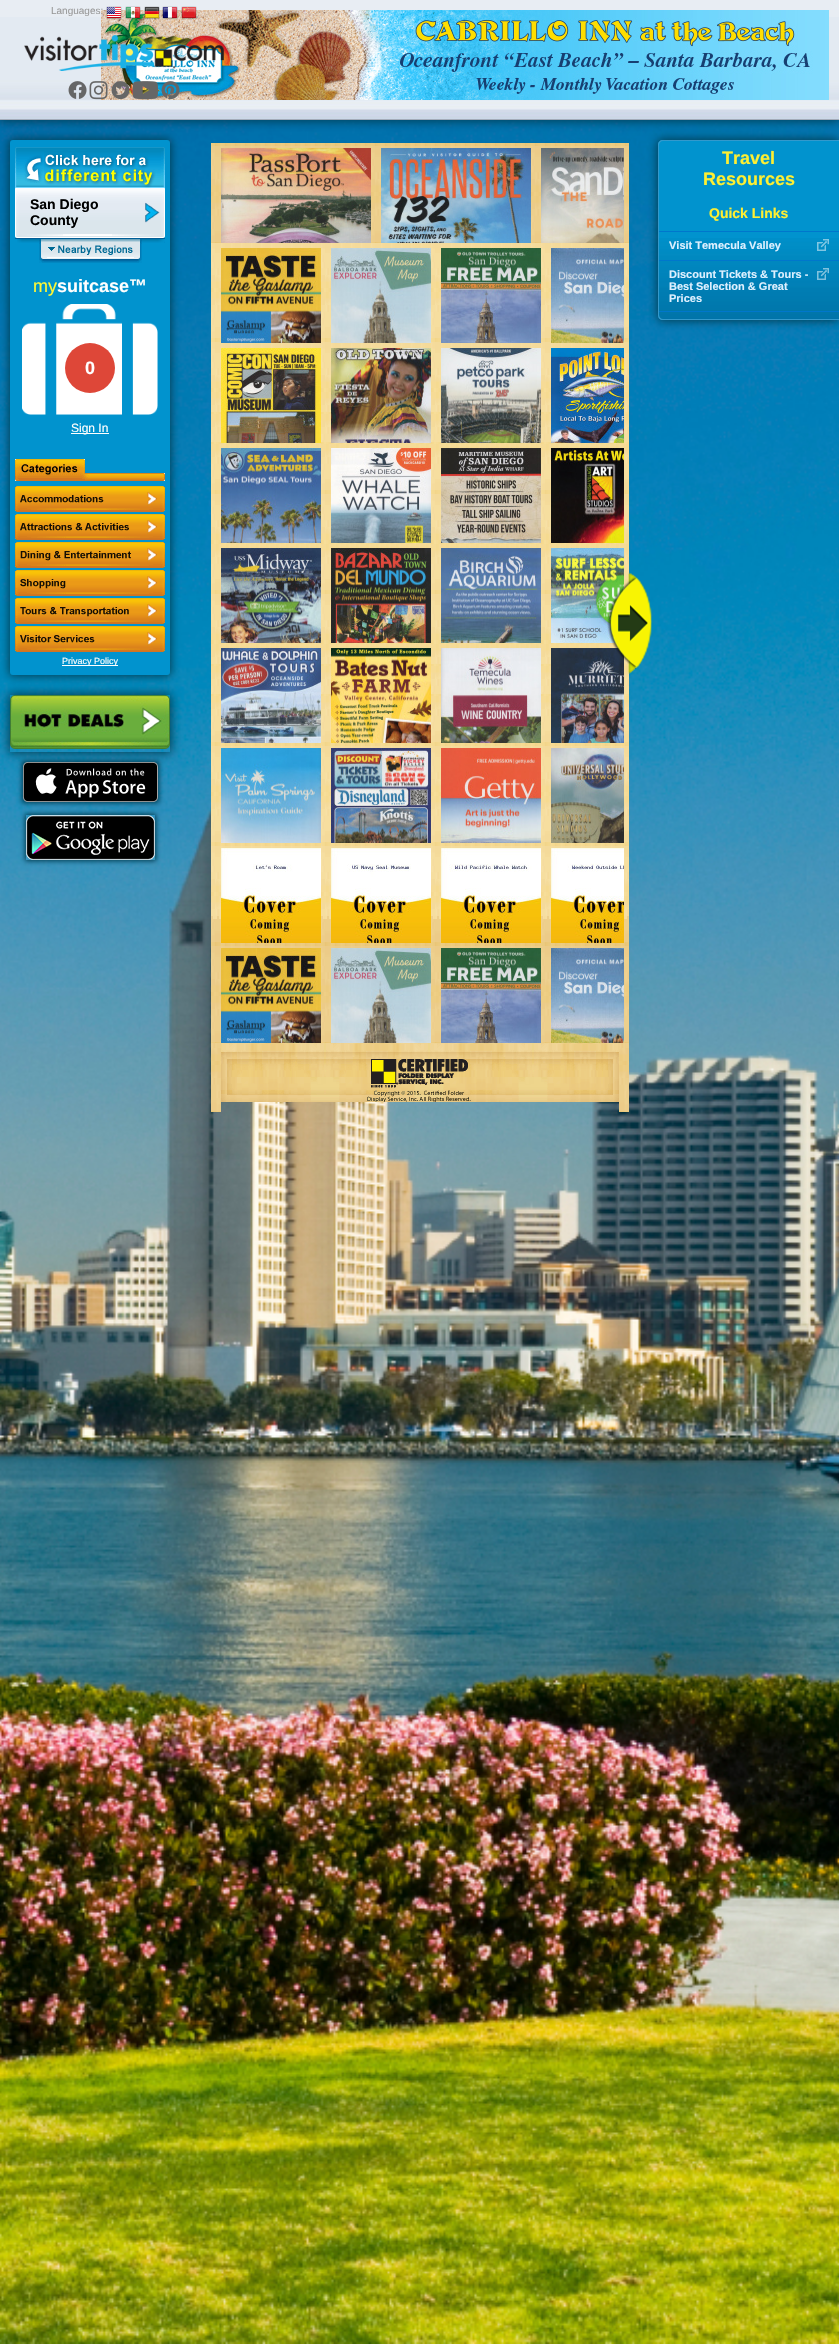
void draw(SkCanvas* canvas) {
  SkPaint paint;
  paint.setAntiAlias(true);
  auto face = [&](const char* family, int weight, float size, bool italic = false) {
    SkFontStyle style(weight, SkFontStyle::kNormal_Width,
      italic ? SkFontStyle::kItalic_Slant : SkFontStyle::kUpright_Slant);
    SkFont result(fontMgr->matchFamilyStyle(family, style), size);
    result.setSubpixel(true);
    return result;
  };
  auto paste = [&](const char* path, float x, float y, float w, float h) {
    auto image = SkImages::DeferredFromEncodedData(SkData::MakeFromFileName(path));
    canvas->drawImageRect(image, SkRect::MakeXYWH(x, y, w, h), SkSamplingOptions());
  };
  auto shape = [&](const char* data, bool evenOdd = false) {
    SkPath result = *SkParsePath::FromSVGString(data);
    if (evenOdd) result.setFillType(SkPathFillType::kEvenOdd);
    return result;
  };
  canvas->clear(0xffffffff);
  paste("img/14.png", 0, 120, 839, 2224);
  paint.setColor(0xff003c50);
  paint.setMaskFilter(SkMaskFilter::MakeBlur(kNormal_SkBlurStyle, 5));
  canvas->drawRect(SkRect::MakeXYWH(-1, -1, 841, 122), paint);
  paint.setMaskFilter(nullptr);
  paint.setColor(0xffe8edf3);
  canvas->drawRect(SkRect::MakeXYWH(0, 0, 839, 17), paint);
  paste("img/1.png", 0, 17, 839, 103);
  paste("img/7.png", 101, 10, 728, 90);
  paste("img/2.png", 106, 6, 16, 14);
  paste("img/3.png", 125, 6, 16, 14);
  paste("img/4.png", 144, 6, 16, 14);
  paste("img/5.png", 162, 6, 16, 14);
  paste("img/6.png", 181, 6, 16, 14);
  paste("img/8.png", 24, 35, 200, 36);
  paste("img/9.png", 68, 81, 19, 18);
  paste("img/10.png", 89, 81, 19, 19);
  paste("img/11.png", 111, 81, 19, 19);
  paste("img/12.png", 132, 81, 27, 19);
  paste("img/13.png", 161, 81, 19, 19);
  paint.setColor(0xff003c50);
  paint.setMaskFilter(SkMaskFilter::MakeBlur(kNormal_SkBlurStyle, 5));
  canvas->drawRoundRect(SkRect::MakeXYWH(9, 139, 162, 537), 4, 4, paint);
  paint.setMaskFilter(nullptr);
  paint.setColor(0xff0193ce);
  canvas->drawRoundRect(SkRect::MakeXYWH(11, 141, 158, 533), 2, 2, paint);
  paint.setStroke(true);
  paint.setStrokeWidth(2);
  canvas->drawRoundRect(SkRect::MakeXYWH(11, 141, 158, 533), 2, 2, paint);
  paste("img/15.png", 15, 233, 150, 5);
  paste("img/16.png", 15, 147, 150, 86);
  paste("img/17.png", 145, 202, 15, 21);
  paste("img/18.png", 17, 239, 148, 4);
  paint.setStroke(false);
  paint.setColor(0xff005e97);
  canvas->drawRect(SkRect::MakeXYWH(15, 238, 150, 1), paint);
  paste("img/19.png", 39, 239, 103, 24);
  paste("img/20.png", 22, 304, 136, 111);
  paint.setColor(0xffde4738);
  canvas->drawCircle(90, 368, 25, paint);
  paint.setColor(0xffffffff);
  canvas->drawRect(SkRect::MakeXYWH(71, 433, 38, 1), paint);
  paste("img/21.png", 15, 459, 150, 22);
  paste("img/22.png", 15, 486, 150, 26);
  paste("img/23.png", 20, 495, 84, 8);
  paste("img/22.png", 15, 514, 150, 26);
  paste("img/24.png", 20, 523, 109, 8);
  paste("img/22.png", 15, 542, 150, 26);
  paste("img/25.png", 20, 551, 111, 10);
  paste("img/22.png", 15, 570, 150, 26);
  paste("img/26.png", 20, 579, 46, 10);
  paste("img/22.png", 15, 598, 150, 26);
  paste("img/27.png", 20, 607, 109, 10);
  paste("img/22.png", 15, 626, 150, 26);
  paste("img/28.png", 20, 635, 75, 8);
  canvas->drawRect(SkRect::MakeXYWH(62, 665, 56, 1), paint);
  canvas->save();
  canvas->clipPath(shape("M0 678H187V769H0ZM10 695H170V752H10Z", true), true);
  paint.setColor(0xff003c50);
  paint.setMaskFilter(SkMaskFilter::MakeBlur(kNormal_SkBlurStyle, 5));
  canvas->drawRect(SkRect::MakeXYWH(9, 694, 162, 59), paint);
  paint.setMaskFilter(nullptr);
  canvas->restore();
  paste("img/29.png", 10, 695, 160, 54);
  paint.setMaskFilter(SkMaskFilter::MakeBlur(kNormal_SkBlurStyle, 2.5f));
  canvas->drawRect(SkRect::MakeXYWH(22, 761, 137, 42), paint);
  paint.setMaskFilter(nullptr);
  paste("img/30.png", 23, 762, 135, 40);
  canvas->save();
  canvas->clipPath(shape("M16 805H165V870H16ZM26 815H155V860H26Z", true), true);
  paint.setMaskFilter(SkMaskFilter::MakeBlur(kNormal_SkBlurStyle, 2.5f));
  canvas->drawRect(SkRect::MakeXYWH(25, 814, 131, 47), paint);
  paint.setMaskFilter(nullptr);
  canvas->restore();
  paste("img/31.png", 26, 815, 129, 45);
  paste("img/32.png", 211, 143, 418, 100);
  paste("img/33.png", 221, 148, 150, 95);
  paste("img/34.png", 381, 148, 150, 95);
  paste("img/35.png", 541, 148, 83, 95);
  paste("img/36.png", 211, 243, 418, 800);
  paste("img/37.png", 221, 248, 100, 95);
  paste("img/38.png", 331, 248, 100, 95);
  paste("img/39.png", 441, 248, 100, 95);
  paste("img/40.png", 551, 248, 73, 95);
  paste("img/41.png", 221, 348, 100, 95);
  paste("img/42.png", 331, 348, 100, 95);
  paste("img/43.png", 441, 348, 100, 95);
  paste("img/44.png", 551, 348, 73, 95);
  paste("img/45.png", 221, 448, 100, 95);
  paste("img/46.png", 331, 448, 100, 95);
  paste("img/47.png", 441, 448, 100, 95);
  paste("img/48.png", 551, 448, 73, 95);
  paste("img/49.png", 221, 548, 100, 95);
  paste("img/50.png", 331, 548, 100, 95);
  paste("img/51.png", 441, 548, 100, 95);
  paste("img/52.png", 551, 548, 73, 95);
  paste("img/53.png", 221, 648, 100, 95);
  paste("img/54.png", 331, 648, 100, 95);
  paste("img/55.png", 441, 648, 100, 95);
  paste("img/56.png", 551, 648, 73, 95);
  paste("img/57.png", 221, 748, 100, 95);
  paste("img/58.png", 331, 748, 100, 95);
  paste("img/59.png", 441, 748, 100, 95);
  paste("img/60.png", 551, 748, 73, 95);
  paste("img/61.png", 221, 848, 100, 95);
  paste("img/62.png", 331, 848, 100, 95);
  paste("img/63.png", 441, 848, 100, 95);
  paste("img/64.png", 551, 848, 73, 95);
  paste("img/37.png", 221, 948, 100, 95);
  paste("img/38.png", 331, 948, 100, 95);
  paste("img/39.png", 441, 948, 100, 95);
  paste("img/40.png", 551, 948, 73, 95);
  paste("img/65.png", 211, 1043, 10, 69);
  paste("img/65.png", 619, 1043, 10, 69);
  paste("img/66.png", 221, 1043, 398, 59);
  paste("img/67.png", 221, 1052, 16, 50);
  paste("img/68.png", 603, 1052, 16, 50);
  paste("img/69.png", 367, 1059, 104, 43);
  paste("img/70.png", 607, 572, 45, 102);
  paint.setMaskFilter(SkMaskFilter::MakeBlur(kNormal_SkBlurStyle, 5));
  canvas->drawRoundRect(SkRect::MakeXYWH(657, 139, 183, 182), 6, 6, paint);
  paint.setMaskFilter(nullptr);
  paint.setColor(0xff0193ce);
  canvas->drawPath(shape("M663 140H839V320H663C660 320 658 318 658 315V145C658 142 660 140 663 140Z"), paint);
  paste("img/71.png", 658, 238, 181, 81);
  paint.setColor(0xff3399cc);
  canvas->drawPath(shape("M663 140H839V320H663C660 320 658 318 658 315V145C658 142 660 140 663 140ZM663 141H839V319H663C661 319 659 317 659 315V145C659 143 661 141 663 141Z", true), paint);
  paint.setColor(0xff0077cc);
  canvas->drawRect(SkRect::MakeXYWH(659, 231, 180, 1), paint);
  canvas->drawRect(SkRect::MakeXYWH(659, 260, 180, 1), paint);
  paste("img/72.png", 817, 239, 12, 12);
  canvas->drawRect(SkRect::MakeXYWH(659, 311, 180, 1), paint);
  paste("img/73.png", 817, 268, 12, 12);
  auto f0 = face("Liberation Sans", 400, 10);
  paint.setColor(0xff999999);
  canvas->drawString("Languages:", 51, 14, f0, paint);
  auto f1 = face("Liberation Sans", 700, 14);
  paint.setColor(0xff000000);
  canvas->drawString("San Diego", 30, 209, f1, paint);
  canvas->drawString("County", 30, 225, f1, paint);
  auto f2 = face("Liberation Sans", 400, 18);
  paint.setColor(0xfffff835);
  canvas->drawString("my", 33, 292, f2, paint);
  auto f3 = face("Liberation Sans", 700, 18);
  paint.setColor(0xffffffff);
  canvas->drawString("suitcase™", 57, 292, f3, paint);
  canvas->drawString("0", 85, 374, f3, paint);
  auto f4 = face("Liberation Sans", 400, 12);
  canvas->drawString("Sign In", 71, 432, f4, paint);
  auto f5 = face("Liberation Sans", 400, 9);
  canvas->drawString("Privacy Policy", 62, 664, f5, paint);
  paint.setColor(0xfffeef32);
  canvas->drawString("Travel", 722, 164, f3, paint);
  canvas->drawString("Resources", 703, 185, f3, paint);
  canvas->drawString("Quick Links", 709, 218, f1, paint);
  auto f6 = face("Liberation Sans", 700, 11);
  paint.setColor(0xffddf0ff);
  {
    const struct { const char* s; float x, y; } items[] = {
      {"Visit Temecula Valley", 669, 249},
      {"Discount Tickets & Tours -", 669, 278},
      {"Best Selection & Great", 669, 290},
      {"Prices", 669, 302},
    };
    for (auto [s, x, y] : items) {
      canvas->drawString(s, x, y, f6, paint);
    }
  }
}
